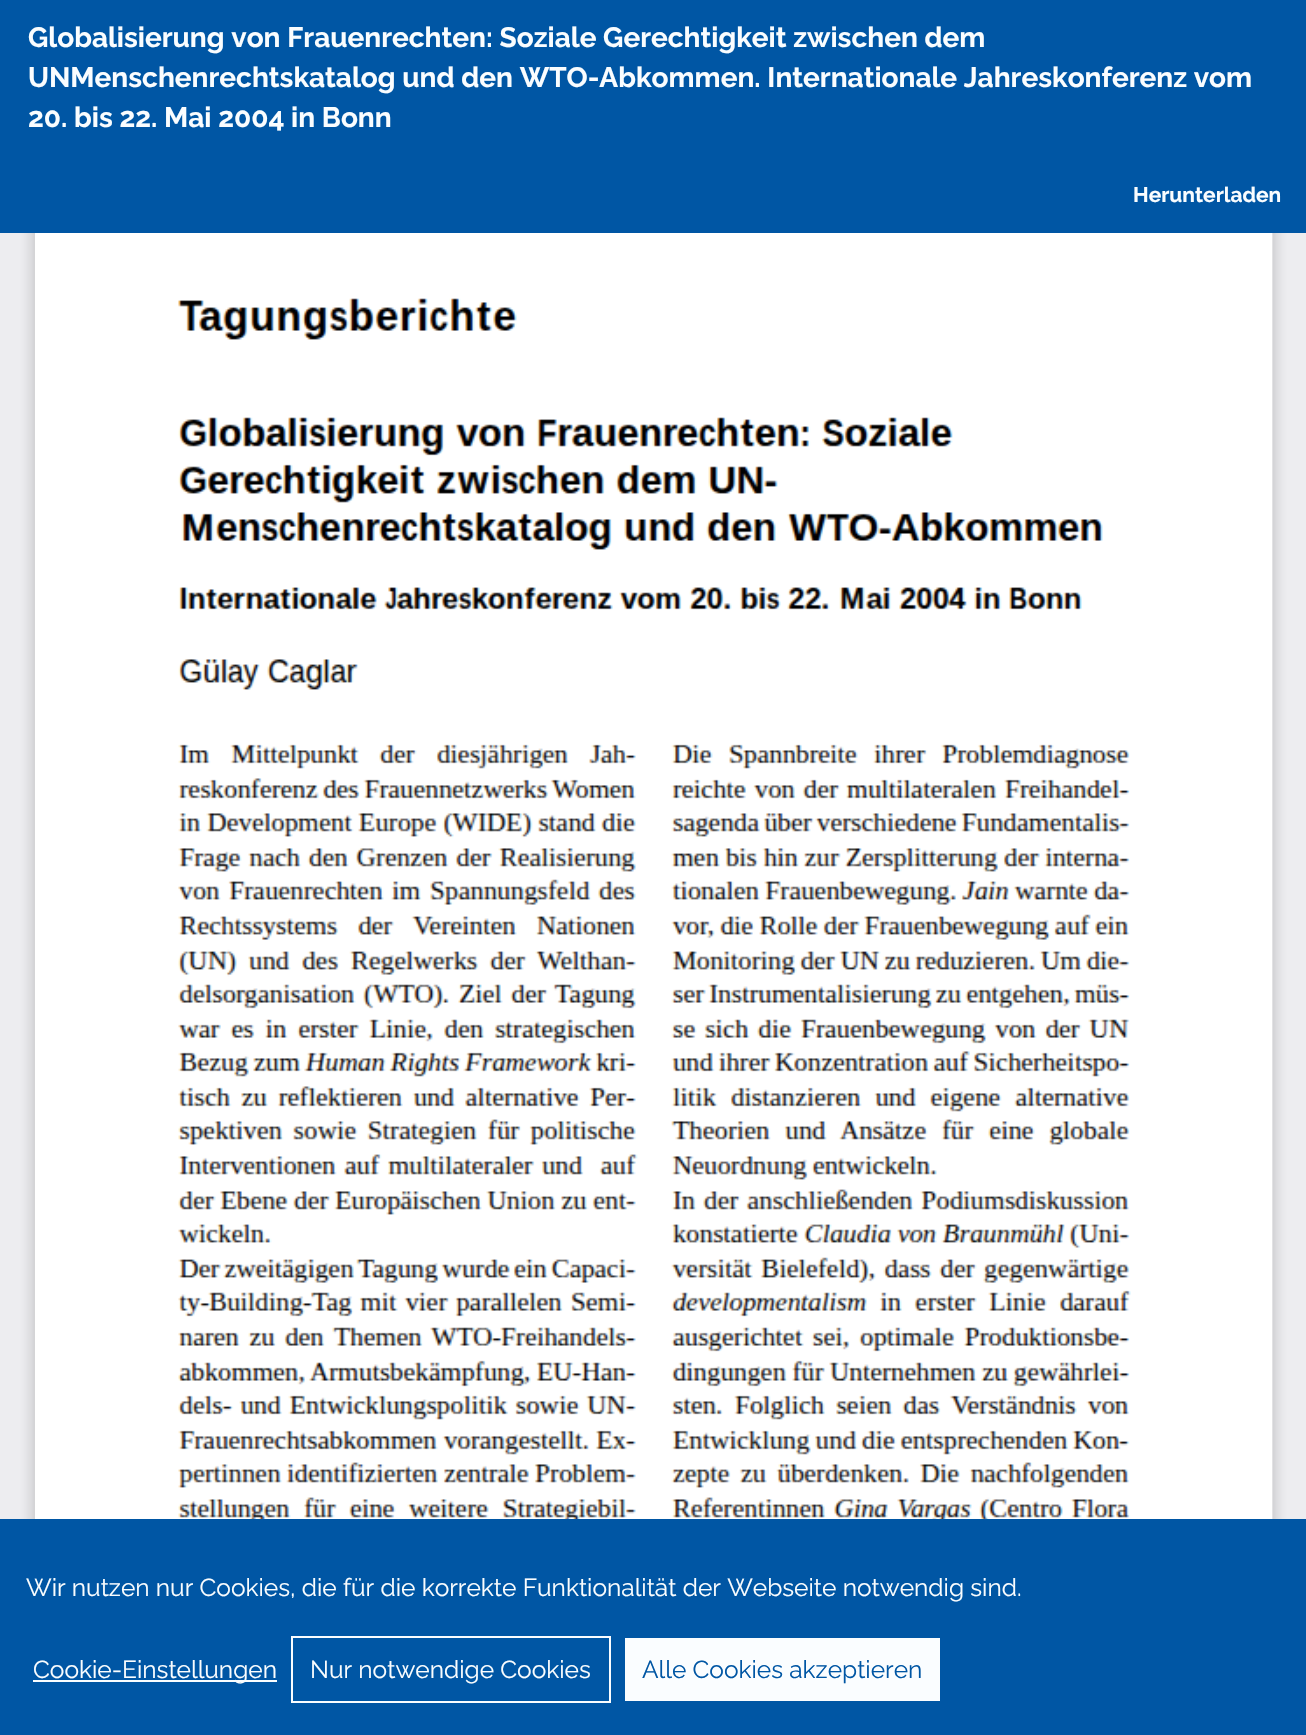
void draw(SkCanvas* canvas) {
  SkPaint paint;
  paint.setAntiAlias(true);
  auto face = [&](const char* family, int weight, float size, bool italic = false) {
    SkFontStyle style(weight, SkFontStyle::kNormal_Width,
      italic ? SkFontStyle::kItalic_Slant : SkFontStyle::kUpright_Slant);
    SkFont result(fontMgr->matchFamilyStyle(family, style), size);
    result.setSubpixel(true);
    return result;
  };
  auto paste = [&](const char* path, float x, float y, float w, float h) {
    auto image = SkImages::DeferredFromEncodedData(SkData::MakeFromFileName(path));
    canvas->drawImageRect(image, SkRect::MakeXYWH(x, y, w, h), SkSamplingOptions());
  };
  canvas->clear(0xffffffff);
  paint.setColor(0xff0056a4);
  canvas->drawRect(SkRect::MakeXYWH(0, 0, 1306, 233), paint);
  paste("img/1.png", 0, 233, 1306, 1286);
  canvas->drawRect(SkRect::MakeXYWH(0, 1519, 1306, 216), paint);
  paint.setColor(0xfffafdff);
  canvas->drawRect(SkRect::MakeXYWH(33, 1680, 244, 2), paint);
  paint.setStroke(true);
  paint.setStrokeWidth(2);
  canvas->drawRect(SkRect::MakeXYWH(292, 1637, 318, 65), paint);
  paint.setStroke(false);
  canvas->drawRect(SkRect::MakeXYWH(625, 1638, 315, 63), paint);
  auto f0 = face("Raleway", 700, 28);
  {
    const struct { const char* s; float x, y; } items[] = {
      {"Globalisierung von Frauenrechten: Soziale Gerechtigkeit zwischen dem", 28, 47},
      {"UNMenschenrechtskatalog und den WTO-Abkommen. Internationale Jahreskonferenz vom", 28, 87},
      {"20. bis 22. Mai 2004 in Bonn", 28, 127},
    };
    for (auto [s, x, y] : items) {
      canvas->drawString(s, x, y, f0, paint);
    }
  }
  auto f1 = face("Raleway", 700, 21);
  canvas->drawString("Herunterladen", 1133, 202, f1, paint);
  auto f2 = face("Raleway", 400, 24.5f);
  {
    const struct { const char* s; float x, y; } items[] = {
      {"Wir nutzen nur Cookies, die für die korrekte Funktionalität der Webseite notwendig sind.", 26, 1596},
      {"Cookie-Einstellungen", 33, 1678},
      {"Nur notwendige Cookies", 310, 1678},
    };
    for (auto [s, x, y] : items) {
      canvas->drawString(s, x, y, f2, paint);
    }
  }
  paint.setColor(0xff0056a4);
  canvas->drawString("Alle Cookies akzeptieren", 642, 1678, f2, paint);
}
